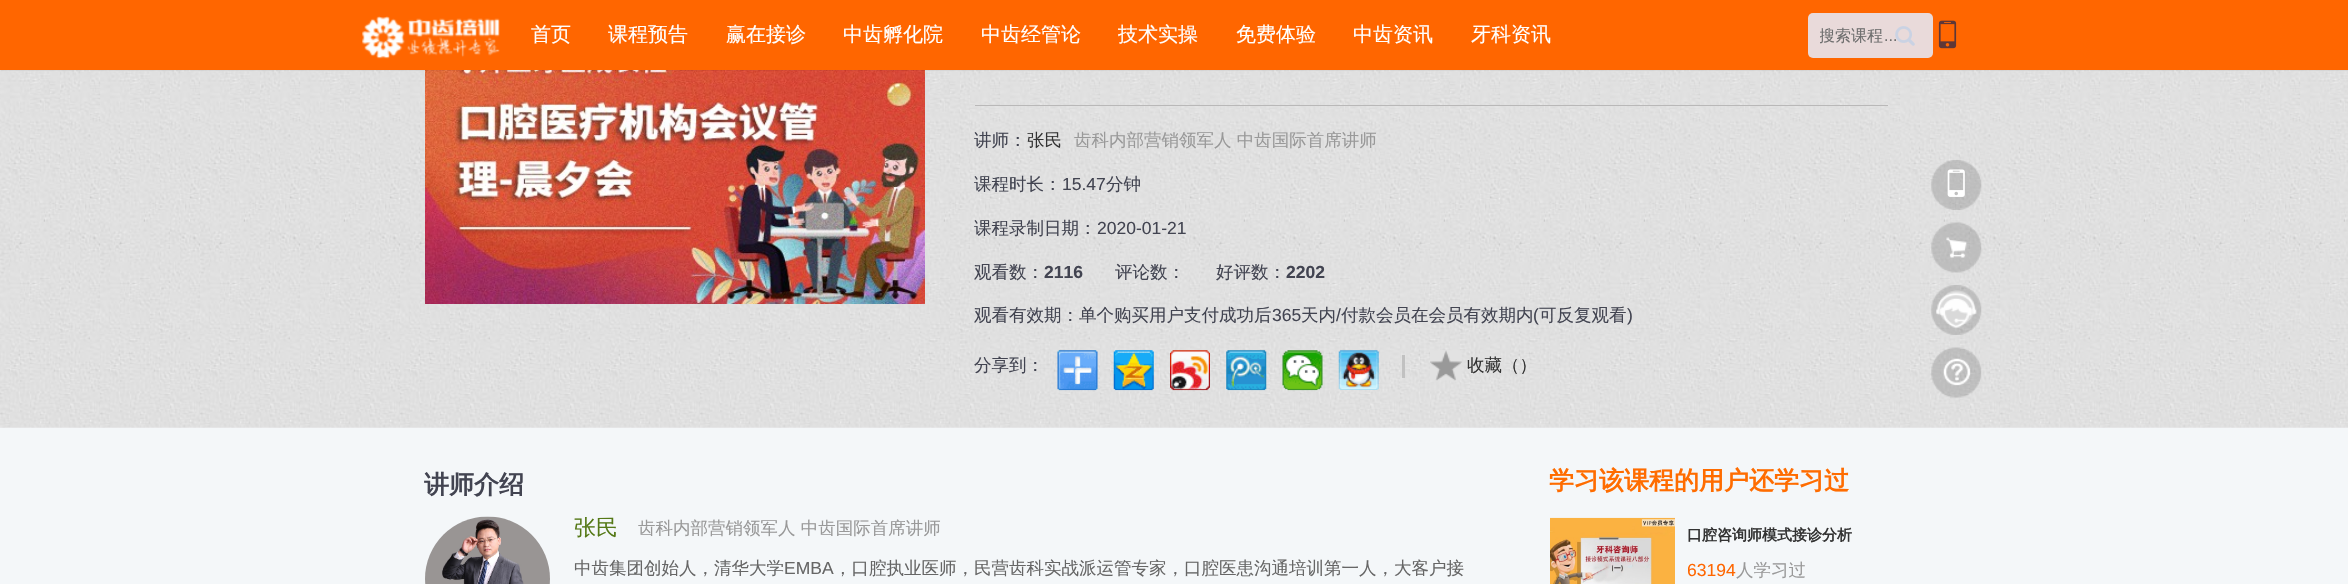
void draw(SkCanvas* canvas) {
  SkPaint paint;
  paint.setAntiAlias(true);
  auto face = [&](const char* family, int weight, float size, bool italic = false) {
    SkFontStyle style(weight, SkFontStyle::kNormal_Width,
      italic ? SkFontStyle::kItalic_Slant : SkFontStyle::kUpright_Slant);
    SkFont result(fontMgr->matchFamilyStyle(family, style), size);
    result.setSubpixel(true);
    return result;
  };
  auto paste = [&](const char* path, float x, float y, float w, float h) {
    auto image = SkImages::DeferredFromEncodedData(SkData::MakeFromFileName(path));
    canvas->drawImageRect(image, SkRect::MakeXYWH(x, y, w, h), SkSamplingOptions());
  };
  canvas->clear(0xfff4f7f9);
  paste("img/4.png", 0, 70, 2348, 358);
  paste("img/5.png", 425, 70, 500, 234);
  paint.setColor(0x40000000);
  paint.setMaskFilter(SkMaskFilter::MakeBlur(kNormal_SkBlurStyle, 0.5f));
  canvas->drawRect(SkRect::MakeXYWH(1, 0, 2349, 70), paint);
  paint.setMaskFilter(nullptr);
  paint.setColor(0xffff6600);
  canvas->drawRect(SkRect::MakeXYWH(0, 0, 2348, 70), paint);
  paste("img/1.png", 362, 16, 138, 43);
  paint.setColor(0xffe9dada);
  canvas->drawRoundRect(SkRect::MakeXYWH(1808, 13, 125, 45), 5, 5, paint);
  paste("img/3.png", 1938, 20, 19, 29);
  paint.setColor(0xffb9b8b8);
  canvas->drawRect(SkRect::MakeXYWH(975, 105, 913, 1), paint);
  paste("img/6.png", 1057, 350, 41, 41);
  paste("img/7.png", 1113, 350, 41, 41);
  paste("img/8.png", 1170, 350, 40, 41);
  paste("img/9.png", 1226, 350, 41, 41);
  paste("img/10.png", 1282, 350, 41, 41);
  paste("img/11.png", 1338, 350, 41, 40);
  paint.setColor(0xffc1c1c1);
  canvas->drawRect(SkRect::MakeXYWH(1402, 355, 3, 23), paint);
  paste("img/12.png", 1430, 350, 32, 31);
  paste("img/13.png", 1931, 160, 51, 50);
  paste("img/14.png", 1947, 169, 18, 28);
  paste("img/15.png", 1931, 222, 51, 51);
  paste("img/16.png", 1931, 285, 51, 50);
  paste("img/17.png", 1931, 347, 51, 51);
  paste("img/18.png", 425, 516, 125, 68);
  paste("img/19.png", 1550, 517, 125, 67);
  auto f0 = face("WenQuanYi Zen Hei", 500, 20);
  paint.setColor(0xffffffff);
  {
    const struct { const char* s; float x, y; } items[] = {
      {"首页", 531, 41},
      {"课程预告", 608, 41},
      {"赢在接诊", 726, 41},
      {"中齿孵化院", 843, 41},
      {"中齿经管论", 981, 41},
      {"技术实操", 1118, 41},
      {"免费体验", 1236, 41},
      {"中齿资讯", 1353, 41},
      {"牙科资讯", 1471, 41},
    };
    for (auto [s, x, y] : items) {
      canvas->drawString(s, x, y, f0, paint);
    }
  }
  canvas->save();
  canvas->clipRect(SkRect::MakeXYWH(1820, 25, 88, 23));
  auto f1 = face("WenQuanYi Zen Hei", 500, 16);
  paint.setColor(0xff6e6e6e);
  canvas->drawString("搜索课程", 1819, 41, f1, paint);
  canvas->restore();
  auto f2 = face("Liberation Sans", 400, 16);
  canvas->drawString("...", 1884, 41, f2, paint);
  paste("img/2.png", 1895, 26, 20, 20);
  auto f3 = face("WenQuanYi Zen Hei", 500, 17.5f);
  paint.setColor(0xff424451);
  canvas->drawString("讲师：", 974, 146, f3, paint);
  paint.setColor(0xff333333);
  canvas->drawString("张民", 1027, 146, f3, paint);
  paint.setColor(0xff999999);
  canvas->drawString("齿科内部营销领军人 中齿国际首席讲师", 1074, 146, f3, paint);
  paint.setColor(0xff424451);
  canvas->drawString("课程时长：", 974, 190, f3, paint);
  auto f4 = face("Liberation Sans", 400, 17.5f);
  canvas->drawString("15.47", 1062, 190, f4, paint);
  canvas->drawString("分钟", 1106, 190, f3, paint);
  canvas->drawString("课程录制日期：", 974, 234, f3, paint);
  canvas->drawString("2020-01-21", 1097, 234, f4, paint);
  canvas->drawString("观看数：", 974, 278, f3, paint);
  auto f5 = face("Liberation Sans", 700, 17.5f);
  canvas->drawString("2116", 1044, 278, f5, paint);
  canvas->drawString("评论数：", 1115, 278, f3, paint);
  canvas->drawString("好评数：", 1216, 278, f3, paint);
  canvas->drawString("2202", 1286, 278, f5, paint);
  canvas->drawString("观看有效期：单个购买用户支付成功后", 974, 321, f3, paint);
  canvas->drawString("365", 1272, 321, f4, paint);
  canvas->drawString("天内", 1301, 321, f3, paint);
  canvas->drawString("/", 1336, 321, f4, paint);
  canvas->drawString("付款会员在会员有效期内", 1341, 321, f3, paint);
  canvas->drawString("(", 1533, 321, f4, paint);
  canvas->drawString("可反复观看", 1539, 321, f3, paint);
  canvas->drawString(")", 1627, 321, f4, paint);
  canvas->drawString("分享到：", 974, 371, f3, paint);
  paint.setColor(0xff333333);
  canvas->drawString("收藏（）", 1467, 371, f3, paint);
  auto f6 = face("WenQuanYi Zen Hei", 700, 25);
  paint.setColor(0xff424451);
  canvas->drawString("讲师介绍", 424, 493, f6, paint);
  auto f7 = face("WenQuanYi Zen Hei", 500, 22);
  paint.setColor(0xff557917);
  canvas->drawString("张民", 574, 535, f7, paint);
  paint.setColor(0xff999999);
  canvas->drawString("齿科内部营销领军人 中齿国际首席讲师", 638, 534, f3, paint);
  paint.setColor(0xff666666);
  canvas->drawString("中齿集团创始人，清华大学", 574, 574, f3, paint);
  canvas->drawString("EMBA", 784, 574, f4, paint);
  canvas->drawString("，口腔执业医师，民营齿科实战派运管专家，口腔医患沟通培训第一人，大客户接", 834, 574, f3, paint);
  paint.setColor(0xffff6c00);
  canvas->drawString("学习该课程的用户还学习过", 1549, 489, f6, paint);
  auto f8 = face("WenQuanYi Zen Hei", 700, 15);
  paint.setColor(0xff333333);
  canvas->drawString("口腔咨询师模式接诊分析", 1687, 540, f8, paint);
  canvas->save();
  canvas->clipRect(SkRect::MakeXYWH(1688, 553, 175, 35));
  paint.setColor(0xffff6600);
  canvas->drawString("63194", 1687, 576, f4, paint);
  canvas->restore();
  paint.setColor(0xff999999);
  canvas->drawString("人学习过", 1736, 576, f3, paint);
}
